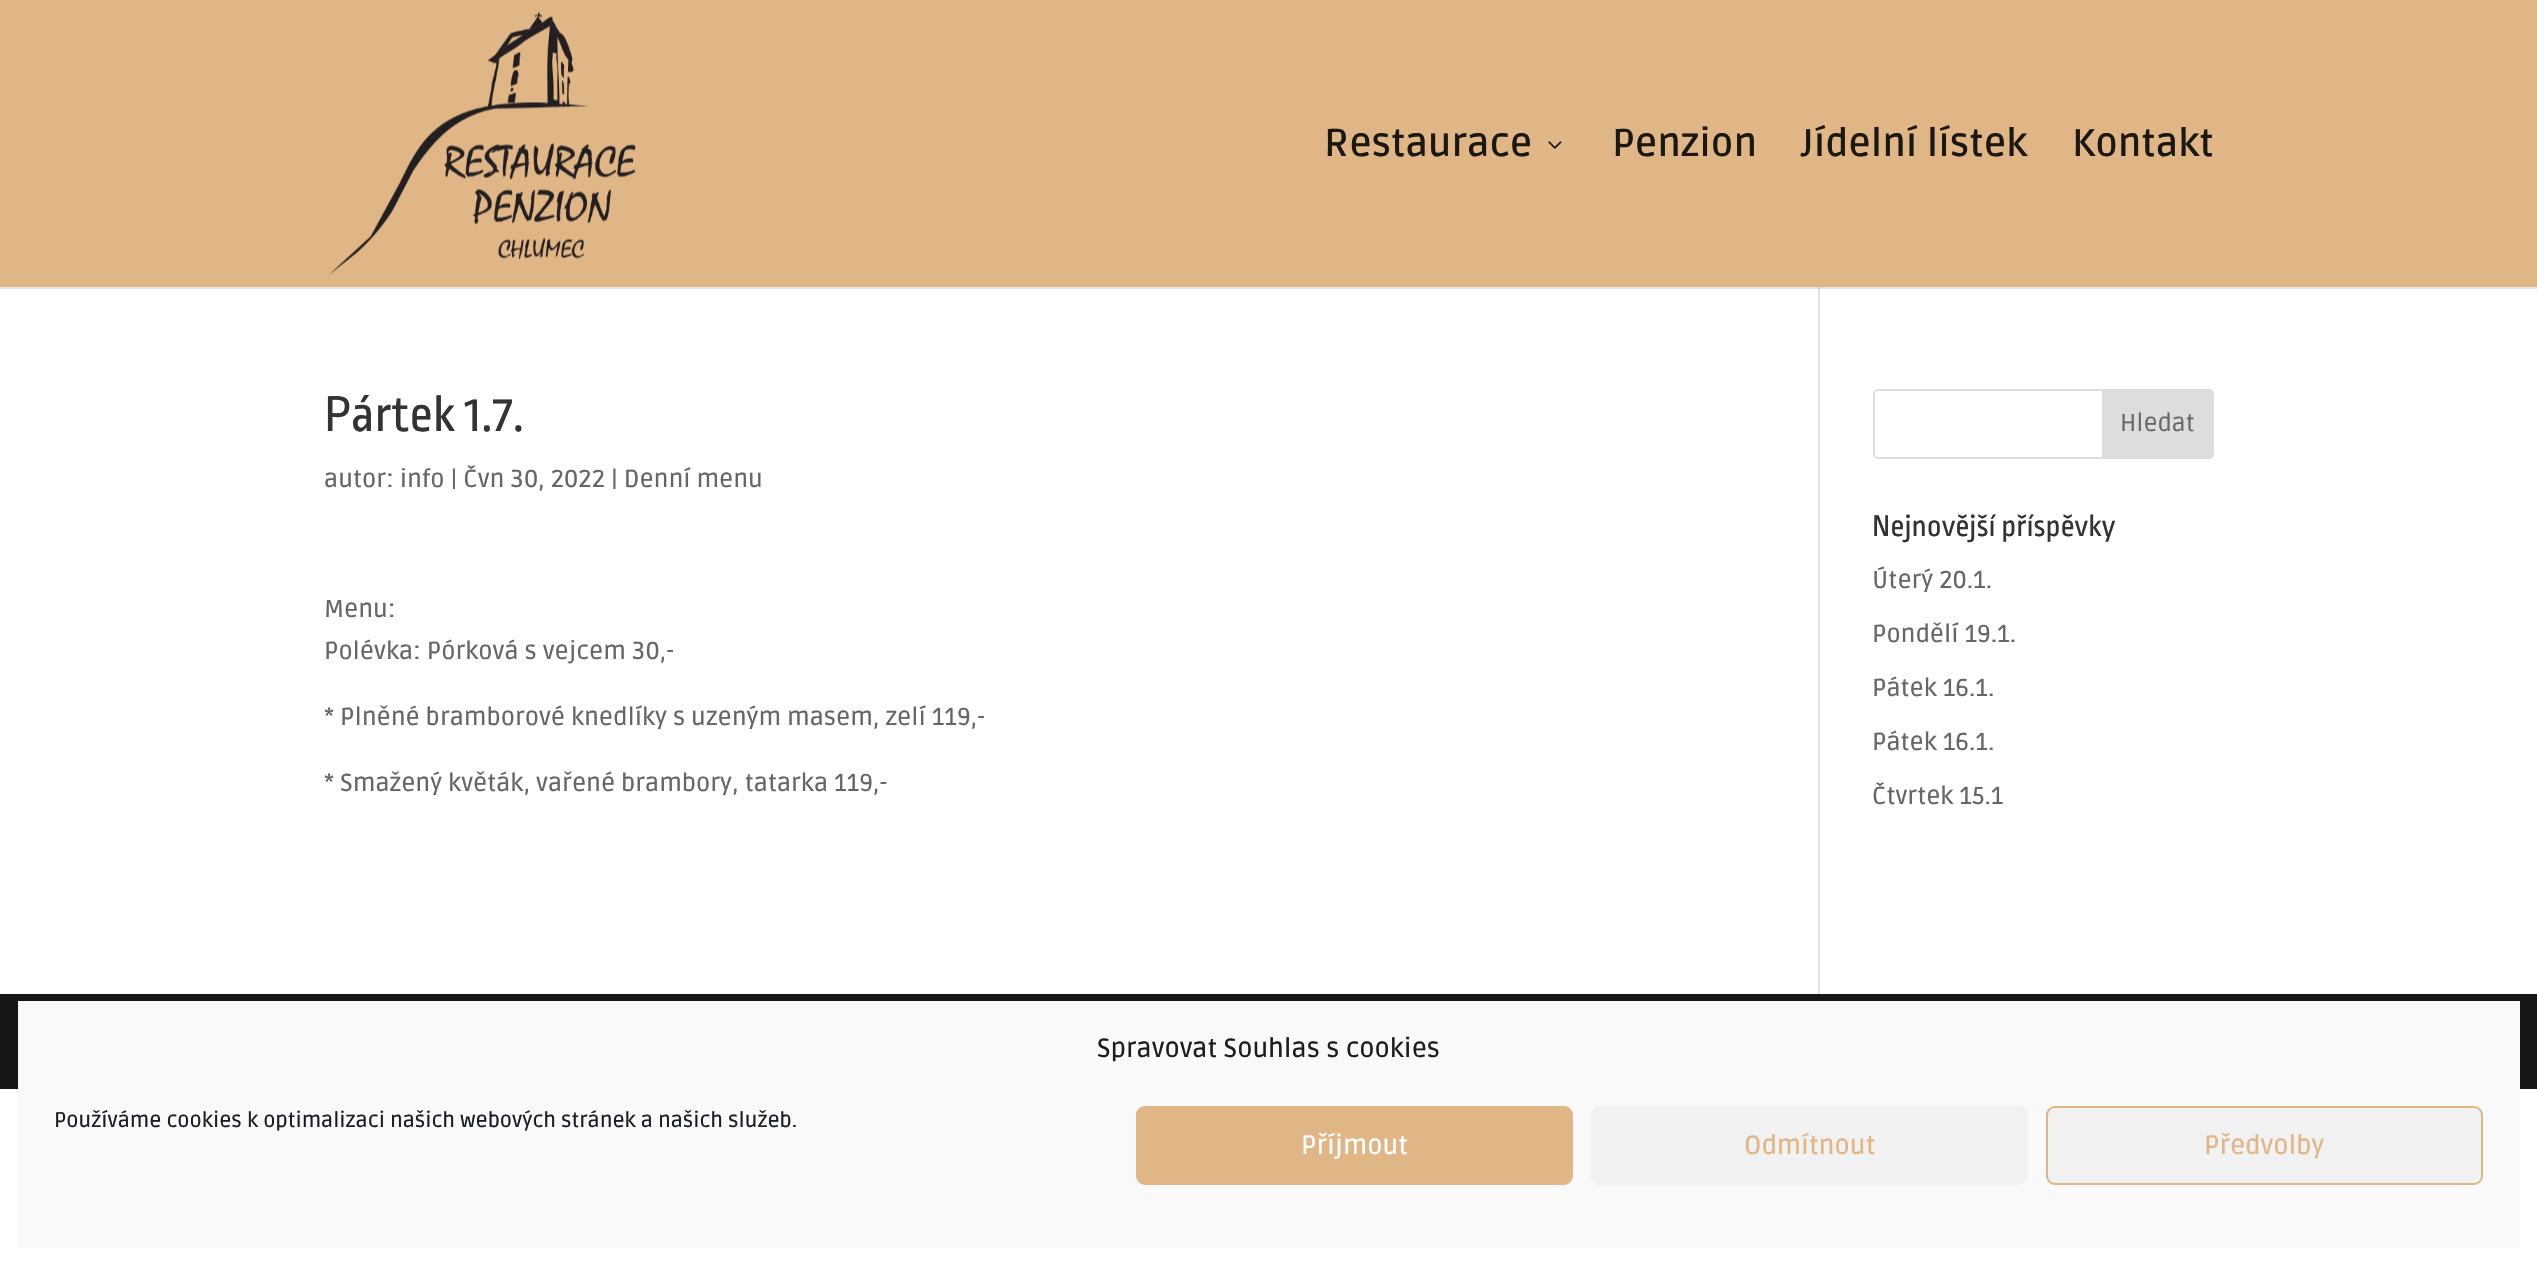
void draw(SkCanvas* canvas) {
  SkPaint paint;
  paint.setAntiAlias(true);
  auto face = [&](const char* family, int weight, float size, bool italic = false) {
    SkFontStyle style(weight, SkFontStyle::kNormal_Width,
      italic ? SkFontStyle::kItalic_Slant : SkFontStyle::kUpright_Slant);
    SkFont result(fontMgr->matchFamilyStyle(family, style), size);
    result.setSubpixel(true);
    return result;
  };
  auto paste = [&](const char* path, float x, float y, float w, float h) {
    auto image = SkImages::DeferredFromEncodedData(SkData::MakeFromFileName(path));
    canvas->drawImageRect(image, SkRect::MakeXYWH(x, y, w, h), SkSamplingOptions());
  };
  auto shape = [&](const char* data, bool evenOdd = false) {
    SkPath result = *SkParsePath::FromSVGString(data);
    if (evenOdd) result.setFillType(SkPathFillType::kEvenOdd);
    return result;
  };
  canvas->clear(0xffffffff);
  paint.setColor(0xffe2e2e2);
  canvas->drawRect(SkRect::MakeXYWH(1818, 287, 2, 707), paint);
  paint.setColor(0x1a000000);
  canvas->drawPath(shape("M0 287V289H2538V2V287Z"), paint);
  paint.setColor(0xffe0b686);
  canvas->drawRect(SkRect::MakeXYWH(0, 0, 2537, 287), paint);
  paste("img/1.png", 329, 11, 307, 264);
  paste("img/2.png", 1548, 141, 14, 8);
  paint.setStroke(true);
  paint.setStrokeWidth(2);
  paint.setColor(0xffdddddd);
  canvas->drawRoundRect(SkRect::MakeXYWH(1874, 390, 339, 68), 4, 4, paint);
  paint.setStroke(false);
  canvas->drawPath(shape("M2103 390H2209C2211 390 2213 392 2213 394V454C2213 456 2211 458 2209 458H2103Z"), paint);
  paint.setStroke(true);
  canvas->drawPath(shape("M2103 390H2209C2211 390 2213 392 2213 394V454C2213 456 2211 458 2209 458H2103Z"), paint);
  paint.setStroke(false);
  paint.setColor(0xff171717);
  canvas->drawRect(SkRect::MakeXYWH(0, 994, 2537, 95), paint);
  paint.setColor(0xfff9f9f9);
  canvas->drawRect(SkRect::MakeXYWH(18, 1001, 2502, 247), paint);
  paint.setColor(0xffe0b686);
  canvas->drawRoundRect(SkRect::MakeXYWH(1137, 1107, 435, 77), 8, 8, paint);
  paint.setStroke(true);
  canvas->drawRoundRect(SkRect::MakeXYWH(1137, 1107, 435, 77), 8, 8, paint);
  paint.setStroke(false);
  paint.setColor(0xfff1f1f1);
  canvas->drawRoundRect(SkRect::MakeXYWH(1591, 1106, 437, 79), 9, 9, paint);
  canvas->drawRoundRect(SkRect::MakeXYWH(2047, 1107, 435, 77), 8, 8, paint);
  paint.setStroke(true);
  paint.setColor(0xffe0b686);
  canvas->drawRoundRect(SkRect::MakeXYWH(2047, 1107, 435, 77), 8, 8, paint);
  auto f0 = face("Ruda", 600, 38.5f);
  paint.setStroke(false);
  paint.setColor(0xff1b1712);
  {
    const struct { const char* s; float x, y; } items[] = {
      {"Restaurace", 1324, 156},
      {"Penzion", 1612, 156},
      {"Jídelní lístek", 1801, 156},
      {"Kontakt", 2072, 156},
    };
    for (auto [s, x, y] : items) {
      canvas->drawString(s, x, y, f0, paint);
    }
  }
  auto f1 = face("Ropa Sans", 400, 52.5f);
  paint.setColor(0xff333333);
  canvas->drawString("Pártek 1.7.", 324, 431, f1, paint);
  auto f2 = face("Ruda", 500, 24.5f);
  paint.setColor(0xff666666);
  {
    const struct { const char* s; float x, y; } items[] = {
      {"autor: info | Čvn 30, 2022 | Denní menu", 324, 487},
      {"Menu:", 324, 617},
      {"Polévka: Pórková s vejcem 30,-", 324, 659},
      {"* Plněné bramborové knedlíky s uzeným masem, zelí 119,-", 324, 725},
      {"* Smažený květák, vařené brambory, tatarka 119,-", 324, 791},
    };
    for (auto [s, x, y] : items) {
      canvas->drawString(s, x, y, f2, paint);
    }
  }
  auto f3 = face("Ruda", 400, 24.5f);
  canvas->drawString("Hledat", 2120, 431, f3, paint);
  auto f4 = face("Ropa Sans", 400, 31.5f);
  paint.setColor(0xff333333);
  canvas->drawString("Nejnovější příspěvky", 1872, 536, f4, paint);
  paint.setColor(0xff666666);
  {
    const struct { const char* s; float x, y; } items[] = {
      {"Úterý 20.1.", 1872, 588},
      {"Pondělí 19.1.", 1872, 642},
      {"Pátek 16.1.", 1872, 696},
      {"Pátek 16.1.", 1872, 750},
      {"Čtvrtek 15.1", 1872, 804},
    };
    for (auto [s, x, y] : items) {
      canvas->drawString(s, x, y, f2, paint);
    }
  }
  auto f5 = face("Ruda", 500, 26.25f);
  paint.setColor(0xff191e23);
  canvas->drawString("Spravovat Souhlas s cookies", 1097, 1057, f5, paint);
  auto f6 = face("Ruda", 500, 21);
  canvas->drawString("Používáme cookies k optimalizaci našich webových stránek a našich služeb.", 54, 1127, f6, paint);
  paint.setColor(0xffffffff);
  canvas->drawString("Příjmout", 1301, 1154, f5, paint);
  paint.setColor(0xffe0b686);
  canvas->drawString("Odmítnout", 1744, 1154, f5, paint);
  canvas->drawString("Předvolby", 2204, 1154, f5, paint);
}
